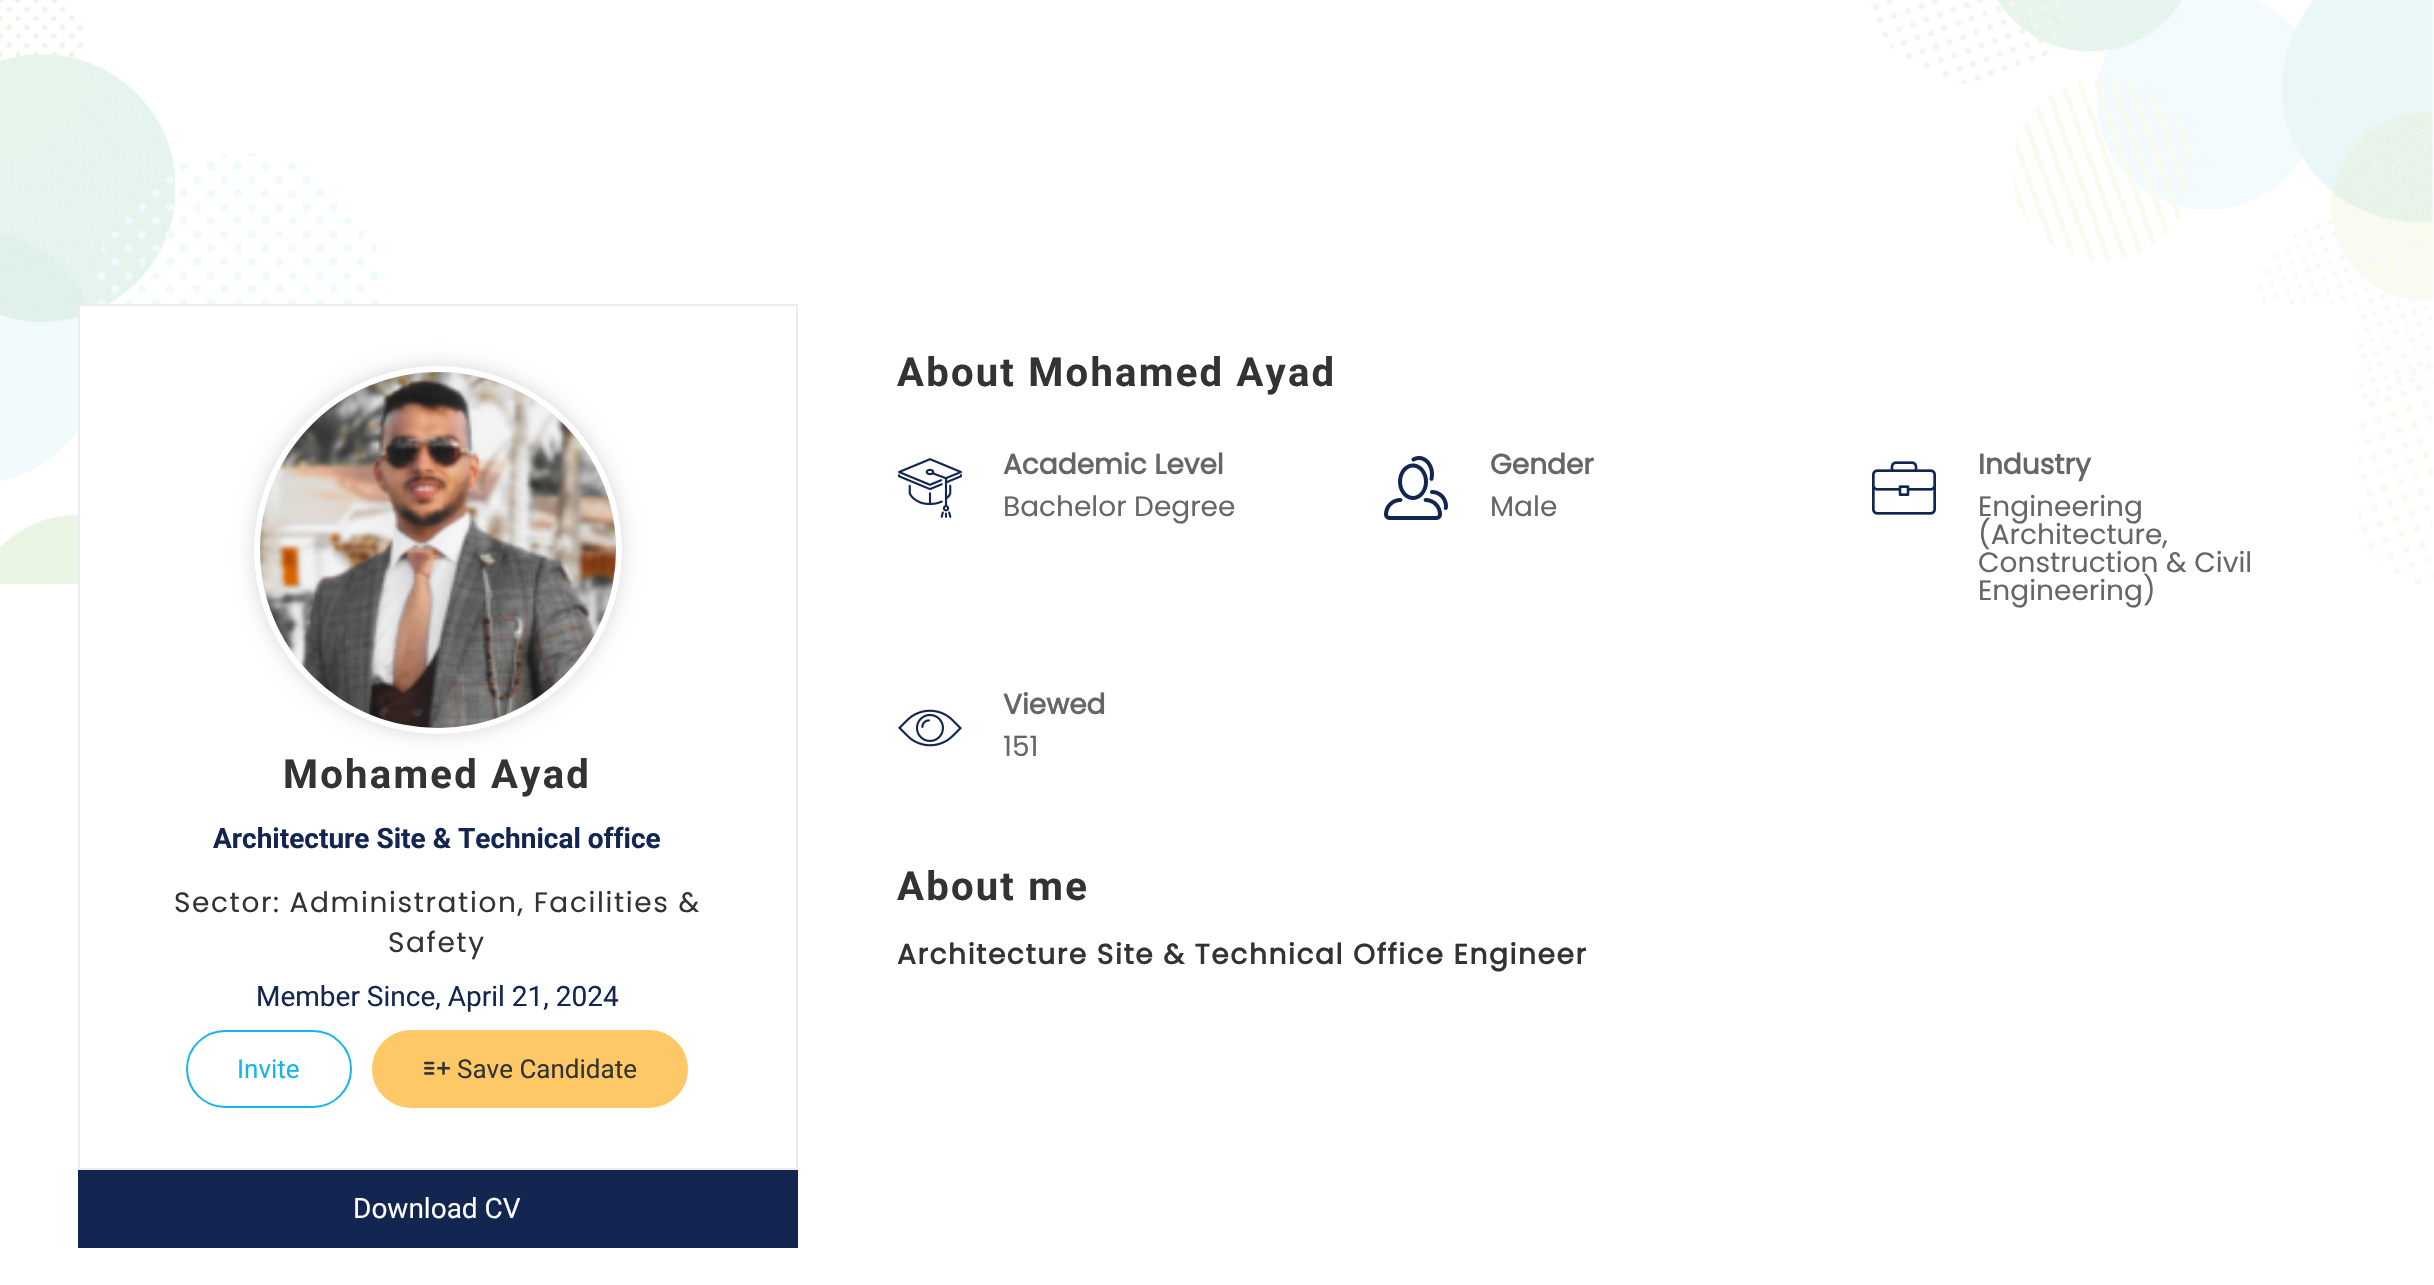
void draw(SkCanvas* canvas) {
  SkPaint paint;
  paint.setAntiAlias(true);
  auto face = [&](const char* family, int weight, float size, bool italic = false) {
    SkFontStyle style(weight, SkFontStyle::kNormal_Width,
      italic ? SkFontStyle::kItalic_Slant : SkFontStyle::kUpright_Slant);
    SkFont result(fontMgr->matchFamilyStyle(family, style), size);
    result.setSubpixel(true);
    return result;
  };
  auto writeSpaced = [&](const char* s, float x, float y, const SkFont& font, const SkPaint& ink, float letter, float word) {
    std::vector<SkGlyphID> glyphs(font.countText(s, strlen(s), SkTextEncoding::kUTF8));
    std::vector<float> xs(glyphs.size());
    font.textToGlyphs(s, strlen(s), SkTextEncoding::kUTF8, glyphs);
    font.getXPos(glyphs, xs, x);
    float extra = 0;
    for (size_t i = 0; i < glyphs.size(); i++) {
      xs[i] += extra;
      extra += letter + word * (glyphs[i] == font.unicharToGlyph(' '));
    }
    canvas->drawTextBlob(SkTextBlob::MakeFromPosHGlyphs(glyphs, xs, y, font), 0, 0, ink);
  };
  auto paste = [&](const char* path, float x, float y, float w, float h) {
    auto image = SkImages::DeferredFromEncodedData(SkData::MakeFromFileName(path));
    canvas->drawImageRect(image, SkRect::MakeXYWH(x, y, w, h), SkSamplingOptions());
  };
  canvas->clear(0xffffffff);
  paste("img/1.png", 0, 0, 2433, 584);
  paint.setColor(0xffffffff);
  canvas->drawRect(SkRect::MakeXYWH(80, 306, 306, 278), paint);
  paint.setStroke(true);
  paint.setStrokeWidth(2);
  paint.setColor(0xffececec);
  canvas->drawRect(SkRect::MakeXYWH(79, 305, 718, 864), paint);
  paint.setStroke(false);
  paint.setColor(0x26000000);
  paint.setMaskFilter(SkMaskFilter::MakeBlur(kNormal_SkBlurStyle, 10));
  canvas->drawRoundRect(SkRect::MakeXYWH(254, 366, 368, 368), 184, 184, paint);
  paint.setMaskFilter(nullptr);
  paint.setStroke(true);
  paint.setStrokeWidth(6);
  paint.setColor(0xffffffff);
  canvas->drawCircle(438, 550, 181, paint);
  paste("img/2.png", 260, 372, 356, 356);
  paint.setStrokeWidth(2);
  paint.setColor(0xff13b5ea);
  canvas->drawRoundRect(SkRect::MakeXYWH(187, 1031, 164, 76), 38, 38, paint);
  paint.setStroke(false);
  paint.setColor(0xffffc866);
  canvas->drawRoundRect(SkRect::MakeXYWH(373, 1031, 314, 76), 38, 38, paint);
  paint.setStroke(true);
  canvas->drawRoundRect(SkRect::MakeXYWH(373, 1031, 314, 76), 38, 38, paint);
  paste("img/3.png", 424, 1061, 26, 14);
  paint.setStroke(false);
  paint.setColor(0xff122651);
  canvas->drawRect(SkRect::MakeXYWH(78, 1170, 720, 78), paint);
  paint.setColor(0xffffffff);
  canvas->drawRect(SkRect::MakeXYWH(2254, 304, 104, 214), paint);
  paste("img/4.png", 898, 458, 64, 60);
  paste("img/5.png", 1384, 456, 64, 64);
  paste("img/6.png", 1872, 461, 64, 54);
  paste("img/7.png", 898, 709, 64, 38);
  auto f0 = face("Roboto", 700, 40);
  paint.setColor(0xff333333);
  writeSpaced("Mohamed Ayad", 283, 788, f0, paint, 2.25f, 0);
  auto f1 = face("Roboto", 700, 28);
  paint.setColor(0xff122651);
  canvas->drawString("Architecture Site & Technical office", 213, 848, f1, paint);
  auto f2 = face("Poppins", 400, 28);
  paint.setColor(0xff333333);
  writeSpaced("Sector: Administration, Facilities &", 174, 912, f2, paint, 1.6f, 0);
  writeSpaced("Safety", 388, 952, f2, paint, 1.6f, 0);
  auto f3 = face("Roboto", 400, 28);
  paint.setColor(0xff122651);
  canvas->drawString("Member Since, April 21, 2024", 256, 1006, f3, paint);
  auto f4 = face("Roboto", 400, 26);
  paint.setColor(0xff13b5ea);
  canvas->drawString("Invite", 237, 1078, f4, paint);
  paint.setColor(0xff333333);
  canvas->drawString("Save Candidate", 457, 1078, f4, paint);
  paint.setColor(0xffffffff);
  canvas->drawString("Download CV", 353, 1218, f3, paint);
  paint.setColor(0xff333333);
  writeSpaced("About Mohamed Ayad", 897, 386, f0, paint, 2.25f, 0);
  auto f5 = face("Poppins", 700, 28);
  paint.setColor(0xff666666);
  canvas->drawString("Academic Level", 1003, 474, f5, paint);
  canvas->drawString("Bachelor Degree", 1003, 516, f2, paint);
  canvas->drawString("Gender", 1490, 474, f5, paint);
  canvas->drawString("Male", 1490, 516, f2, paint);
  canvas->drawString("Industry", 1978, 474, f5, paint);
  {
    const struct { const char* s; float x, y; } items[] = {
      {"Engineering", 1978, 516},
      {"(Architecture,", 1978, 544},
      {"Construction & Civil", 1978, 572},
      {"Engineering)", 1978, 600},
    };
    for (auto [s, x, y] : items) {
      canvas->drawString(s, x, y, f2, paint);
    }
  }
  canvas->drawString("Viewed", 1003, 714, f5, paint);
  canvas->drawString("151", 1003, 756, f2, paint);
  paint.setColor(0xff333333);
  writeSpaced("About me", 897, 900, f0, paint, 2.25f, 0);
  writeSpaced("Architecture Site & Technical Office Engineer", 897, 964, f5, paint, 1.6f, 0);
}
